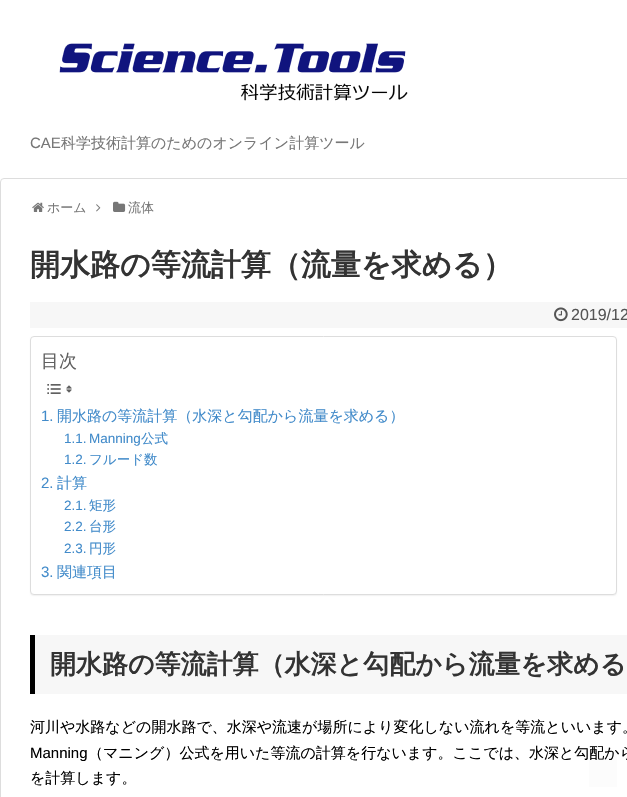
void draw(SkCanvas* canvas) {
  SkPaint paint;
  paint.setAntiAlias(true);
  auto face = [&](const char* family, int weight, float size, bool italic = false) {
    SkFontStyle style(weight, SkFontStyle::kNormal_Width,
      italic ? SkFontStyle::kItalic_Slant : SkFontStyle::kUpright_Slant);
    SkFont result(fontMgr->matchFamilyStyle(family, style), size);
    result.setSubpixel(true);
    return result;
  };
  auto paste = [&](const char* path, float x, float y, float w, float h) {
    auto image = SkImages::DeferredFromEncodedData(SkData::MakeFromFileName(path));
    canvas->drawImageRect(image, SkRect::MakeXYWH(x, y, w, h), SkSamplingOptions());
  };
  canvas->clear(0xffffffff);
  paste("img/1.png", 59, 43, 349, 58);
  paint.setStroke(true);
  paint.setStrokeWidth(1);
  paint.setColor(0xffdddddd);
  canvas->drawRoundRect(SkRect::MakeXYWH(0.5f, 178.5f, 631, 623), 3.5f, 3.5f, paint);
  paste("img/2.png", 32, 202, 12, 10);
  paste("img/3.png", 96, 204, 5, 8);
  paste("img/4.png", 113, 201, 13, 11);
  paint.setStroke(false);
  paint.setColor(0xfff7f7f7);
  canvas->drawRect(SkRect::MakeXYWH(30, 302, 597, 26), paint);
  paste("img/5.png", 554, 307, 14, 15);
  paint.setColor(0x0d000000);
  paint.setMaskFilter(SkMaskFilter::MakeBlur(kNormal_SkBlurStyle, 0.5f));
  canvas->drawRoundRect(SkRect::MakeXYWH(30, 337, 587, 259), 4, 4, paint);
  paint.setMaskFilter(nullptr);
  paint.setColor(0xffffffff);
  canvas->drawRoundRect(SkRect::MakeXYWH(30.5f, 336.5f, 586, 258), 3.5f, 3.5f, paint);
  paint.setStroke(true);
  paint.setColor(0xffdddddd);
  canvas->drawRoundRect(SkRect::MakeXYWH(30.5f, 336.5f, 586, 258), 3.5f, 3.5f, paint);
  paste("img/6.png", 47, 384, 14, 10);
  paste("img/7.png", 66, 385, 6, 8);
  paint.setStroke(false);
  {
    const struct { float x, y, w, h; SkColor color; } items[] = {
      {35, 635, 592, 59, 0xfff7f7f7},
      {30, 635, 5, 59, 0xff000000},
      {589, 751, 28, 36, 0x0aaaaaaa},
    };
    for (auto [x, y, w, h, color] : items) {
      paint.setColor(color);
      canvas->drawRect(SkRect::MakeXYWH(x, y, w, h), paint);
    }
  }
  auto f0 = face("Liberation Sans", 400, 15);
  paint.setColor(0xff777777);
  canvas->drawString("CAE", 30, 148, f0, paint);
  auto f1 = face("WenQuanYi Zen Hei", 500, 15);
  canvas->drawString("科学技術計算のためのオンライン計算ツール", 61, 148, f1, paint);
  auto f2 = face("WenQuanYi Zen Hei", 500, 13);
  canvas->drawString("ホーム", 47, 212, f2, paint);
  canvas->drawString("流体", 128, 212, f2, paint);
  auto f3 = face("WenQuanYi Zen Hei", 700, 30);
  paint.setColor(0xff333333);
  canvas->drawString("開水路の等流計算（流量を求める）", 30, 275, f3, paint);
  auto f4 = face("Liberation Sans", 400, 16);
  paint.setColor(0xff555555);
  canvas->drawString("2019/12", 571, 320, f4, paint);
  auto f5 = face("WenQuanYi Zen Hei", 500, 18);
  paint.setColor(0xff606060);
  canvas->drawString("目次", 41, 367, f5, paint);
  paint.setColor(0xff428bca);
  canvas->drawString("1.", 41, 421, f0, paint);
  canvas->drawString("開水路の等流計算（水深と勾配から流量を求める）", 57, 421, f1, paint);
  auto f6 = face("Liberation Sans", 400, 13.5f);
  canvas->drawString("1.1.", 64, 443, f6, paint);
  canvas->drawString("Manning", 89, 443, f6, paint);
  auto f7 = face("WenQuanYi Zen Hei", 500, 13.5f);
  canvas->drawString("公式", 141, 443, f7, paint);
  canvas->drawString("1.2.", 64, 464, f6, paint);
  canvas->drawString("フルード数", 89, 464, f7, paint);
  canvas->drawString("2.", 41, 488, f0, paint);
  canvas->drawString("計算", 57, 488, f1, paint);
  canvas->drawString("2.1.", 64, 510, f6, paint);
  canvas->drawString("矩形", 89, 510, f7, paint);
  canvas->drawString("2.2.", 64, 531, f6, paint);
  canvas->drawString("台形", 89, 531, f7, paint);
  canvas->drawString("2.3.", 64, 553, f6, paint);
  canvas->drawString("円形", 89, 553, f7, paint);
  canvas->drawString("3.", 41, 577, f0, paint);
  canvas->drawString("関連項目", 57, 577, f1, paint);
  auto f8 = face("WenQuanYi Zen Hei", 700, 26);
  paint.setColor(0xff333333);
  canvas->drawString("開水路の等流計算（水深と勾配から流量を求める", 50, 673, f8, paint);
  paint.setColor(0xff000000);
  canvas->drawString("河川や水路などの開水路で、水深や流速が場所により変化しない流れを等流といいます。", 30, 732, f1, paint);
  canvas->drawString("Manning", 30, 758, f0, paint);
  canvas->drawString("（マニング）公式を用いた等流の計算を行ないます。ここでは、水深と勾配から", 88, 758, f1, paint);
  canvas->drawString("を計算します。", 30, 783, f1, paint);
}
